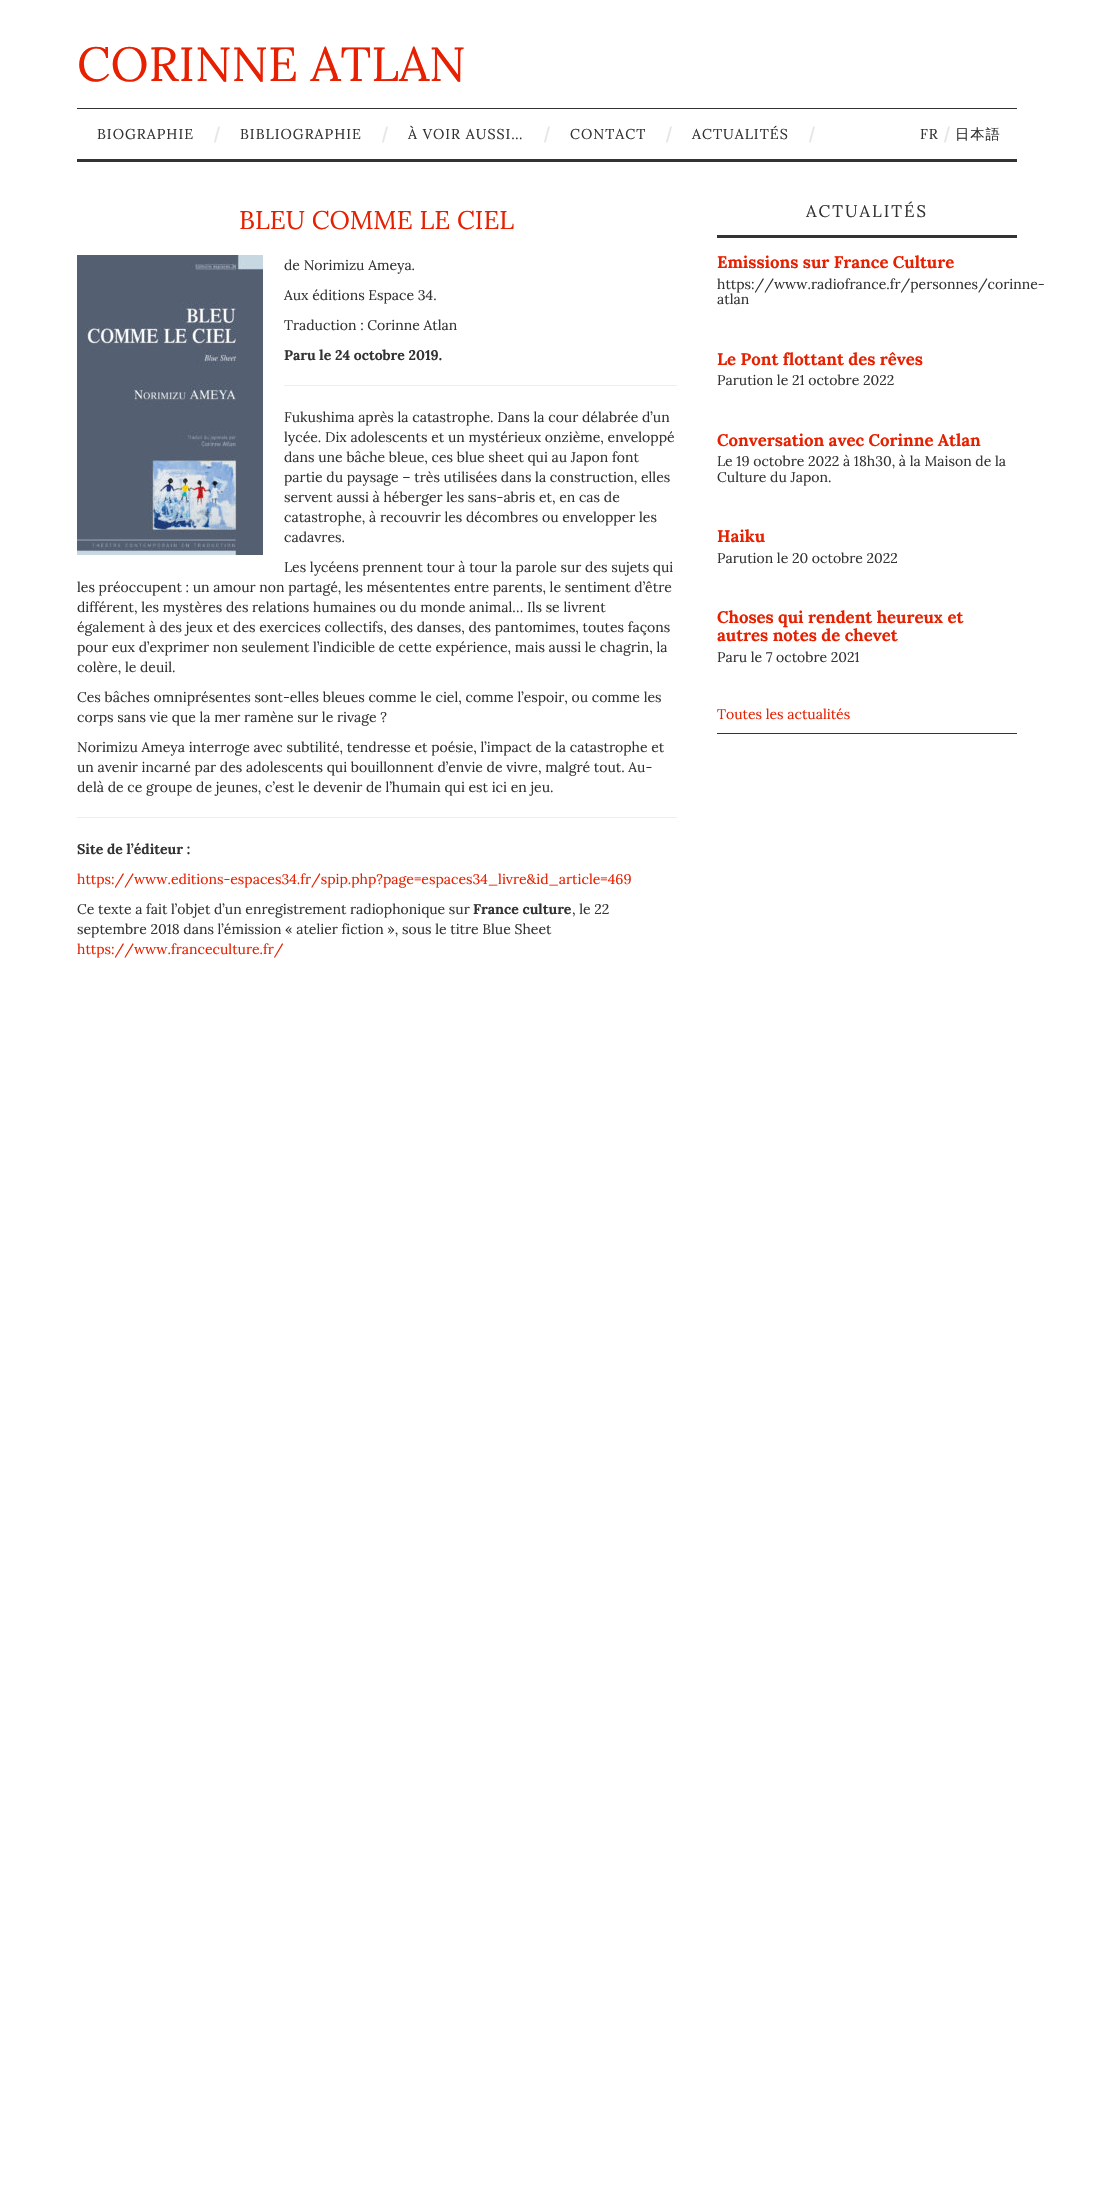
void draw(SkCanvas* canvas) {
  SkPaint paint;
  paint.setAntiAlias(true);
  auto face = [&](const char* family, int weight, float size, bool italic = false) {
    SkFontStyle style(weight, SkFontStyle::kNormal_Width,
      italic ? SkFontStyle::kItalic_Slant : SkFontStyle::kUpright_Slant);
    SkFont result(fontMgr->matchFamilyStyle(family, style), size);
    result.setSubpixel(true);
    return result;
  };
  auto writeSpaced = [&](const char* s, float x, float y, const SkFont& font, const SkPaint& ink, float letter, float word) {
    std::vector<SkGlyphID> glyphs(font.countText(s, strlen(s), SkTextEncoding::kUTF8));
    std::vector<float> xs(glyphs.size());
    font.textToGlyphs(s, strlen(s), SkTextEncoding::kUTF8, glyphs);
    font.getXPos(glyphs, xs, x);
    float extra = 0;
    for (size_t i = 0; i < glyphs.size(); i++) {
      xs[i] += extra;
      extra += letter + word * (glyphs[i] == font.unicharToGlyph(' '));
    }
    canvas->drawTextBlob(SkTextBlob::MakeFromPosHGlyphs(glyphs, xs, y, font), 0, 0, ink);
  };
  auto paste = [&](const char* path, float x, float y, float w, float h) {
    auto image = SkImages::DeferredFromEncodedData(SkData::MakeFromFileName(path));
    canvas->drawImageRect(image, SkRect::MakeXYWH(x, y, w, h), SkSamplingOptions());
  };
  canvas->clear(0xffffffff);
  paint.setColor(0xff333333);
  canvas->drawRect(SkRect::MakeXYWH(77, 108, 940, 1), paint);
  canvas->drawRect(SkRect::MakeXYWH(77, 159, 940, 3), paint);
  paste("img/1.png", 77, 255, 186, 300);
  {
    const struct { float x, y, w, h; SkColor color; } items[] = {
      {284, 385, 393, 1, 0xffeeeeee},
      {77, 817, 600, 1, 0xffeeeeee},
      {717, 733, 300, 1, 0xff333333},
      {717, 235, 300, 3, 0xff333333},
    };
    for (auto [x, y, w, h, color] : items) {
      paint.setColor(color);
      canvas->drawRect(SkRect::MakeXYWH(x, y, w, h), paint);
    }
  }
  auto f0 = face("Lora", 400, 48);
  paint.setColor(0xffe62000);
  canvas->drawString("CORINNE ATLAN", 77, 81, f0, paint);
  auto f1 = face("Lora", 400, 14.25f);
  paint.setColor(0xff333333);
  writeSpaced("BIOGRAPHIE", 97, 139, f1, paint, 1, 0);
  auto f2 = face("Liberation Sans", 400, 21);
  paint.setColor(0xffe6e6e6);
  canvas->drawString("/", 214, 142, f2, paint);
  paint.setColor(0xff333333);
  writeSpaced("BIBLIOGRAPHIE", 240, 139, f1, paint, 1, 0);
  paint.setColor(0xffe6e6e6);
  canvas->drawString("/", 382, 142, f2, paint);
  paint.setColor(0xff333333);
  writeSpaced("À VOIR AUSSI…", 408, 139, f1, paint, 1, 0);
  paint.setColor(0xffe6e6e6);
  canvas->drawString("/", 544, 142, f2, paint);
  paint.setColor(0xff333333);
  writeSpaced("CONTACT", 570, 139, f1, paint, 1, 0);
  paint.setColor(0xffe6e6e6);
  canvas->drawString("/", 666, 142, f2, paint);
  paint.setColor(0xff333333);
  writeSpaced("ACTUALITÉS", 692, 139, f1, paint, 1, 0);
  paint.setColor(0xffe6e6e6);
  canvas->drawString("/", 809, 142, f2, paint);
  paint.setColor(0xff333333);
  writeSpaced("FR", 920, 139, f1, paint, 1, 0);
  paint.setColor(0xffe6e6e6);
  canvas->drawString("/", 944, 142, f2, paint);
  auto f3 = face("WenQuanYi Zen Hei", 500, 14.25f);
  paint.setColor(0xff333333);
  writeSpaced("日本語", 955, 139, f3, paint, 1, 0);
  auto f4 = face("Lora", 400, 25.6f);
  paint.setColor(0xffe62000);
  canvas->drawString("BLEU COMME LE CIEL", 239, 229, f4, paint);
  auto f5 = face("Lora", 400, 14);
  paint.setColor(0xff333333);
  {
    const struct { const char* s; float x, y; } items[] = {
      {"de Norimizu Ameya.", 284, 270},
      {"Aux éditions Espace 34.", 284, 300},
      {"Traduction : Corinne Atlan", 284, 330},
    };
    for (auto [s, x, y] : items) {
      canvas->drawString(s, x, y, f5, paint);
    }
  }
  auto f6 = face("Lora", 700, 14);
  canvas->drawString("Paru le 24 octobre 2019.", 284, 360, f6, paint);
  {
    const struct { const char* s; float x, y; } items[] = {
      {"Fukushima après la catastrophe. Dans la cour délabrée d’un", 284, 422},
      {"lycée. Dix adolescents et un mystérieux onzième, enveloppé", 284, 442},
      {"dans une bâche bleue, ces blue sheet qui au Japon font", 284, 462},
      {"partie du paysage – très utilisées dans la construction, elles", 284, 482},
      {"servent aussi à héberger les sans-abris et, en cas de", 284, 502},
      {"catastrophe, à recouvrir les décombres ou envelopper les", 284, 522},
      {"cadavres.", 284, 542},
      {"Les lycéens prennent tour à tour la parole sur des sujets qui", 284, 572},
      {"les préoccupent : un amour non partagé, les mésententes entre parents, le sentiment d’être", 77, 592},
      {"différent, les mystères des relations humaines ou du monde animal… Ils se livrent", 77, 612},
      {"également à des jeux et des exercices collectifs, des danses, des pantomimes, toutes façons", 77, 632},
      {"pour eux d’exprimer non seulement l’indicible de cette expérience, mais aussi le chagrin, la", 77, 652},
      {"colère, le deuil.", 77, 672},
      {"Ces bâches omniprésentes sont-elles bleues comme le ciel, comme l’espoir, ou comme les", 77, 702},
      {"corps sans vie que la mer ramène sur le rivage ?", 77, 722},
      {"Norimizu Ameya interroge avec subtilité, tendresse et poésie, l’impact de la catastrophe et", 77, 752},
      {"un avenir incarné par des adolescents qui bouillonnent d’envie de vivre, malgré tout. Au-", 77, 772},
      {"delà de ce groupe de jeunes, c’est le devenir de l’humain qui est ici en jeu.", 77, 792},
    };
    for (auto [s, x, y] : items) {
      canvas->drawString(s, x, y, f5, paint);
    }
  }
  canvas->drawString("Site de l’éditeur :", 77, 854, f6, paint);
  paint.setColor(0xffe62000);
  canvas->drawString("https://www.editions-espaces34.fr/spip.php?page=espaces34_livre&id_article=469", 77, 884, f5, paint);
  paint.setColor(0xff333333);
  canvas->drawString("Ce texte a fait l’objet d’un enregistrement radiophonique sur", 77, 914, f5, paint);
  canvas->drawString("France culture", 473, 914, f6, paint);
  canvas->drawString(", le 22", 572, 914, f5, paint);
  canvas->drawString("septembre 2018 dans l’émission « atelier fiction », sous le titre Blue Sheet", 77, 934, f5, paint);
  paint.setColor(0xffe62000);
  canvas->drawString("https://www.franceculture.fr/", 77, 954, f5, paint);
  auto f7 = face("Lora", 400, 16.75f);
  paint.setColor(0xff333333);
  writeSpaced("ACTUALITÉS", 806, 217, f7, paint, 2, 0);
  auto f8 = face("Lora", 700, 16.75f);
  paint.setColor(0xffe62000);
  canvas->drawString("Emissions sur France Culture", 717, 268, f8, paint);
  paint.setColor(0xff333333);
  canvas->drawString("https://www.radiofrance.fr/personnes/corinne-", 717, 289, f5, paint);
  canvas->drawString("atlan", 717, 304, f5, paint);
  paint.setColor(0xffe62000);
  canvas->drawString("Le Pont flottant des rêves", 717, 365, f8, paint);
  paint.setColor(0xff333333);
  canvas->drawString("Parution le 21 octobre 2022", 717, 385, f5, paint);
  paint.setColor(0xffe62000);
  canvas->drawString("Conversation avec Corinne Atlan", 717, 446, f8, paint);
  paint.setColor(0xff333333);
  canvas->drawString("Le 19 octobre 2022 à 18h30, à la Maison de la", 717, 466, f5, paint);
  canvas->drawString("Culture du Japon.", 717, 482, f5, paint);
  paint.setColor(0xffe62000);
  canvas->drawString("Haiku", 717, 542, f8, paint);
  paint.setColor(0xff333333);
  canvas->drawString("Parution le 20 octobre 2022", 717, 563, f5, paint);
  paint.setColor(0xffe62000);
  canvas->drawString("Choses qui rendent heureux et", 717, 623, f8, paint);
  canvas->drawString("autres notes de chevet", 717, 641, f8, paint);
  paint.setColor(0xff333333);
  canvas->drawString("Paru le 7 octobre 2021", 717, 662, f5, paint);
  paint.setColor(0xffe62000);
  canvas->drawString("Toutes les actualités", 717, 719, f5, paint);
}
